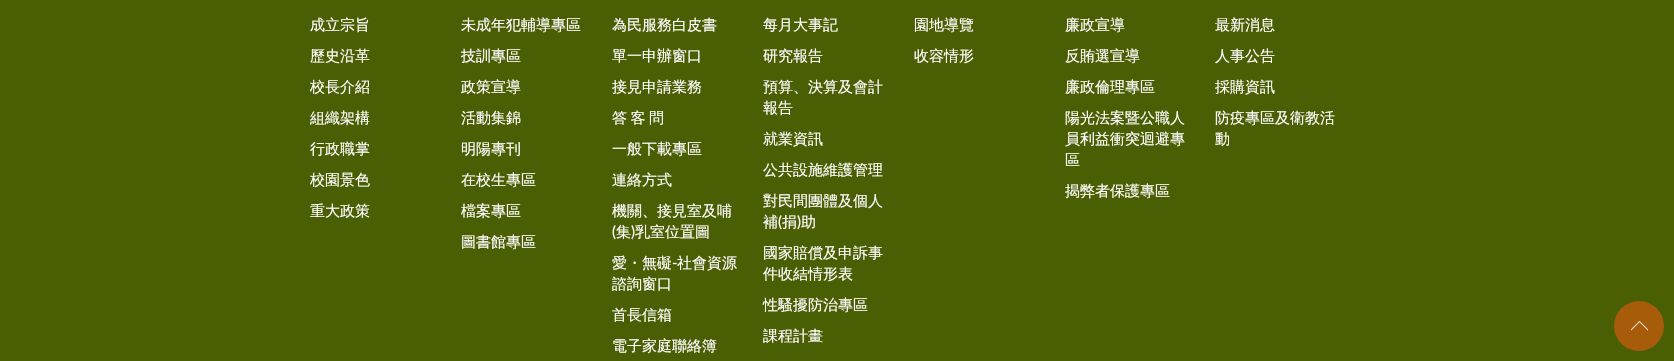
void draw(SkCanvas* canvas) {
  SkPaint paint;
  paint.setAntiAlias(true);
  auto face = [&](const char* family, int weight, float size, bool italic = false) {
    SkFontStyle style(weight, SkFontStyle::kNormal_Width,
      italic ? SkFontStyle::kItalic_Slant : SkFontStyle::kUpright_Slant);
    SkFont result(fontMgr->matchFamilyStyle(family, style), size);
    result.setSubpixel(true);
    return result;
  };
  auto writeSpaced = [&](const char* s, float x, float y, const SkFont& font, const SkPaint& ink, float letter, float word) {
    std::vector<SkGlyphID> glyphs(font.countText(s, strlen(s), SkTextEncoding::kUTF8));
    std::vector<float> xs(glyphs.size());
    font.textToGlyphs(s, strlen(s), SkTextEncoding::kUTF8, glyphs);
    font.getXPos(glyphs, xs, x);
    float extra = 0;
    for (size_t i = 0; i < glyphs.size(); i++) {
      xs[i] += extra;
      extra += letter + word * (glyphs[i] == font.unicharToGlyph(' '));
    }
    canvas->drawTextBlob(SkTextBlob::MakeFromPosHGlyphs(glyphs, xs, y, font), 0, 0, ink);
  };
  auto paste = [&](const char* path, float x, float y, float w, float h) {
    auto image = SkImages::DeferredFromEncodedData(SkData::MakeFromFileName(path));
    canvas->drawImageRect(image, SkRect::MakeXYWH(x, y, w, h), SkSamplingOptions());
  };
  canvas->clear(0xff4a5e03);
  paint.setColor(0xffa65c09);
  canvas->drawCircle(1639, 326, 25, paint);
  paste("img/1.png", 1631, 321, 17, 10);
  auto f0 = face("WenQuanYi Zen Hei", 500, 15);
  paint.setColor(0xffffffff);
  {
    const struct { const char* s; float x, y; } items[] = {
      {"成立宗旨", 310, 30},
      {"歷史沿革", 310, 61},
      {"校長介紹", 310, 92},
      {"組織架構", 310, 123},
      {"行政職掌", 310, 154},
      {"校園景色", 310, 185},
      {"重大政策", 310, 216},
      {"未成年犯輔導專區", 461, 30},
      {"技訓專區", 461, 61},
      {"政策宣導", 461, 92},
      {"活動集錦", 461, 123},
      {"明陽專刊", 461, 154},
      {"在校生專區", 461, 185},
      {"檔案專區", 461, 216},
      {"圖書館專區", 461, 247},
      {"為民服務白皮書", 612, 30},
      {"單一申辦窗口", 612, 61},
      {"接見申請業務", 612, 92},
    };
    for (auto [s, x, y] : items) {
      canvas->drawString(s, x, y, f0, paint);
    }
  }
  writeSpaced("答 客 問", 612, 123, f0, paint, 0, -1);
  {
    const struct { const char* s; float x, y; } items[] = {
      {"一般下載專區", 612, 154},
      {"連絡方式", 612, 185},
      {"機關、接見室及哺", 612, 216},
    };
    for (auto [s, x, y] : items) {
      canvas->drawString(s, x, y, f0, paint);
    }
  }
  auto f1 = face("Lato", 400, 15);
  canvas->drawString("(", 612, 237, f1, paint);
  canvas->drawString("集", 616, 237, f0, paint);
  canvas->drawString(")", 631, 237, f1, paint);
  canvas->drawString("乳室位置圖", 635, 237, f0, paint);
  canvas->drawString("愛・無礙", 612, 268, f0, paint);
  canvas->drawString("-", 672, 268, f1, paint);
  {
    const struct { const char* s; float x, y; } items[] = {
      {"社會資源", 677, 268},
      {"諮詢窗口", 612, 289},
      {"首長信箱", 612, 320},
      {"電子家庭聯絡簿", 612, 351},
      {"每月大事記", 763, 30},
      {"研究報告", 763, 61},
      {"預算、決算及會計", 763, 92},
      {"報告", 763, 113},
      {"就業資訊", 763, 144},
      {"公共設施維護管理", 763, 175},
      {"對民間團體及個人", 763, 206},
      {"補", 763, 227},
    };
    for (auto [s, x, y] : items) {
      canvas->drawString(s, x, y, f0, paint);
    }
  }
  canvas->drawString("(", 778, 227, f1, paint);
  canvas->drawString("捐", 782, 227, f0, paint);
  canvas->drawString(")", 797, 227, f1, paint);
  {
    const struct { const char* s; float x, y; } items[] = {
      {"助", 801, 227},
      {"國家賠償及申訴事", 763, 258},
      {"件收結情形表", 763, 279},
      {"性騷擾防治專區", 763, 310},
      {"課程計畫", 763, 341},
      {"園地導覽", 914, 30},
      {"收容情形", 914, 61},
      {"廉政宣導", 1065, 30},
      {"反賄選宣導", 1065, 61},
      {"廉政倫理專區", 1065, 92},
      {"陽光法案暨公職人", 1065, 123},
      {"員利益衝突迴避專", 1065, 144},
      {"區", 1065, 165},
      {"揭弊者保護專區", 1065, 196},
      {"最新消息", 1215, 30},
      {"人事公告", 1215, 61},
      {"採購資訊", 1215, 92},
      {"防疫專區及衛教活", 1215, 123},
      {"動", 1215, 144},
    };
    for (auto [s, x, y] : items) {
      canvas->drawString(s, x, y, f0, paint);
    }
  }
}
